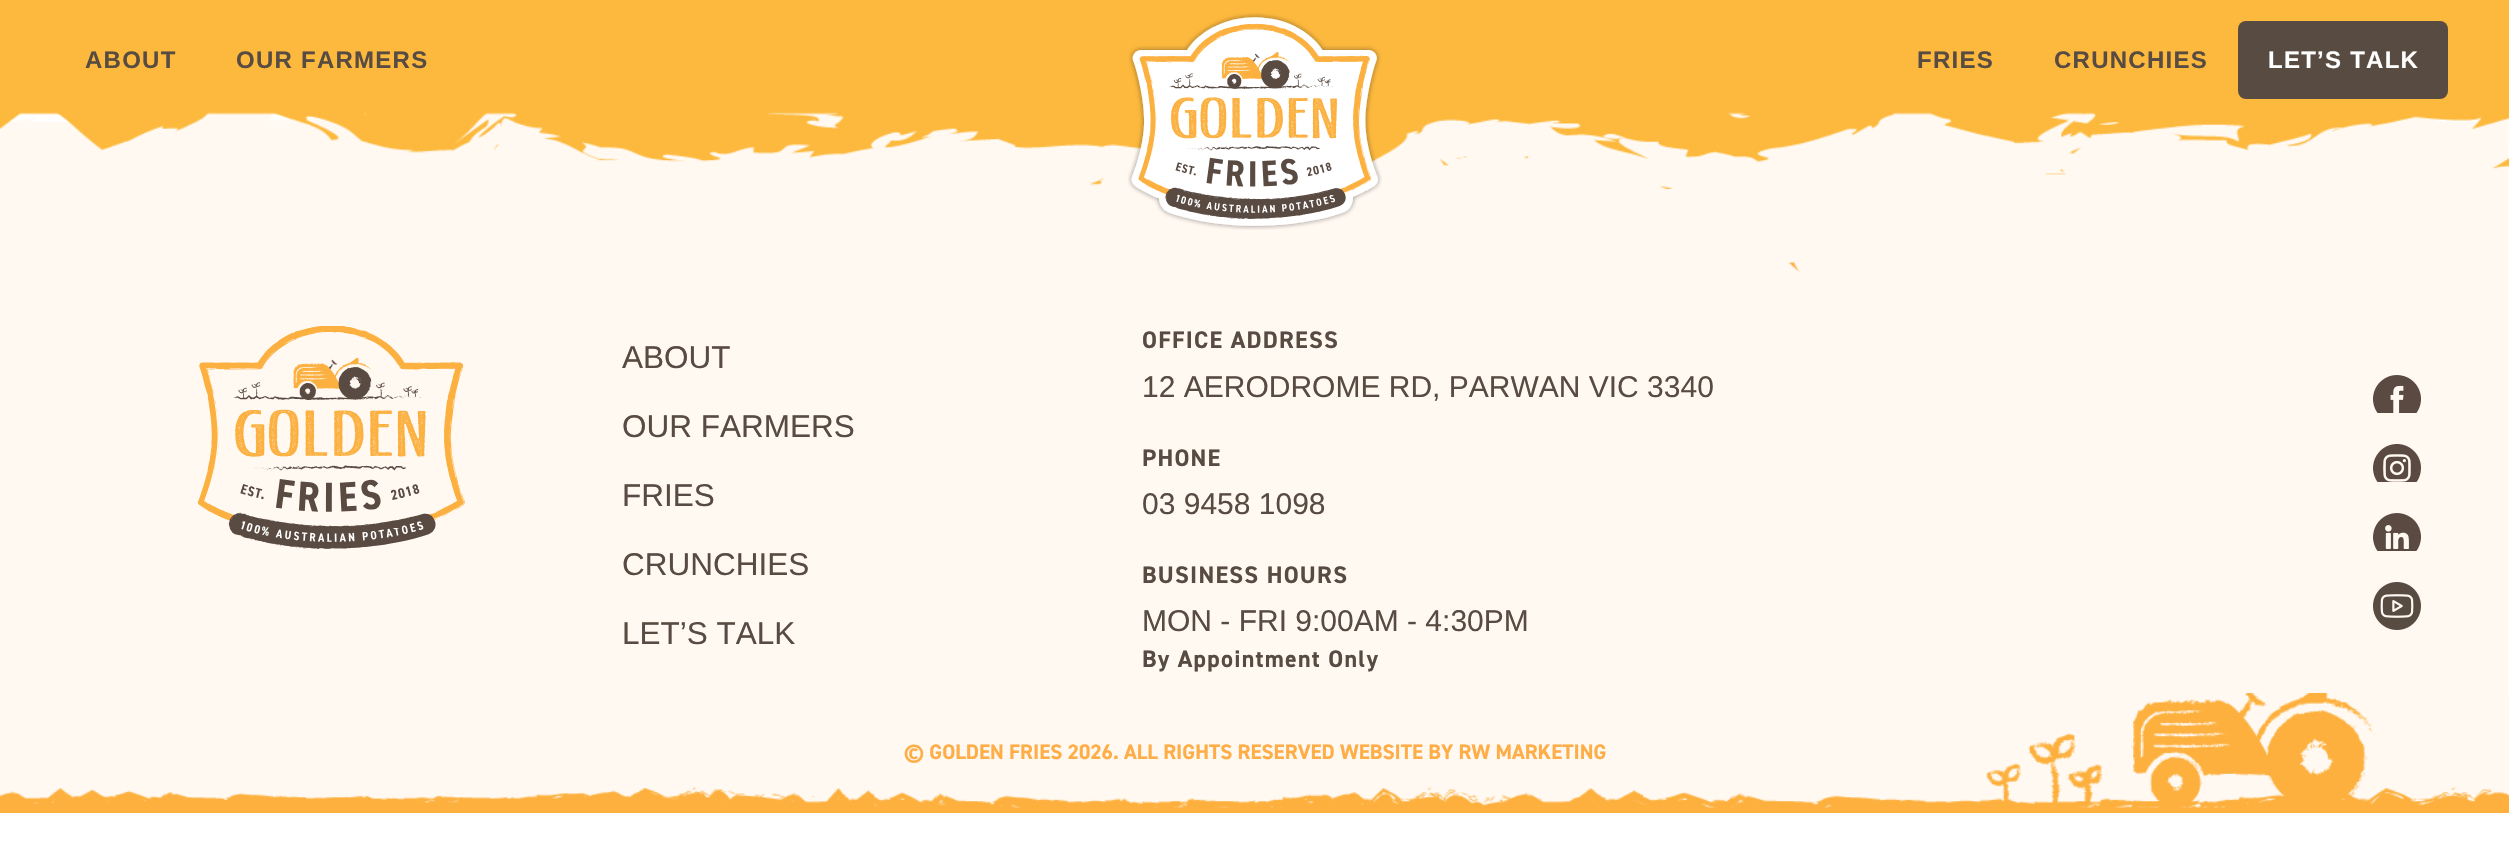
void draw(SkCanvas* canvas) {
  SkPaint paint;
  paint.setAntiAlias(true);
  auto face = [&](const char* family, int weight, float size, bool italic = false) {
    SkFontStyle style(weight, SkFontStyle::kNormal_Width,
      italic ? SkFontStyle::kItalic_Slant : SkFontStyle::kUpright_Slant);
    SkFont result(fontMgr->matchFamilyStyle(family, style), size);
    result.setSubpixel(true);
    return result;
  };
  auto writeSpaced = [&](const char* s, float x, float y, const SkFont& font, const SkPaint& ink, float letter, float word) {
    std::vector<SkGlyphID> glyphs(font.countText(s, strlen(s), SkTextEncoding::kUTF8));
    std::vector<float> xs(glyphs.size());
    font.textToGlyphs(s, strlen(s), SkTextEncoding::kUTF8, glyphs);
    font.getXPos(glyphs, xs, x);
    float extra = 0;
    for (size_t i = 0; i < glyphs.size(); i++) {
      xs[i] += extra;
      extra += letter + word * (glyphs[i] == font.unicharToGlyph(' '));
    }
    canvas->drawTextBlob(SkTextBlob::MakeFromPosHGlyphs(glyphs, xs, y, font), 0, 0, ink);
  };
  auto paste = [&](const char* path, float x, float y, float w, float h) {
    auto image = SkImages::DeferredFromEncodedData(SkData::MakeFromFileName(path));
    canvas->drawImageRect(image, SkRect::MakeXYWH(x, y, w, h), SkSamplingOptions());
  };
  canvas->clear(0xffffffff);
  paste("img/3.png", 0, 112, 2509, 581);
  paste("img/1.png", 0, 0, 2509, 189);
  paste("img/2.png", 1128, 13, 254, 217);
  paint.setColor(0xff584b42);
  canvas->drawRoundRect(SkRect::MakeXYWH(2238, 21, 210, 78), 8, 8, paint);
  paste("img/4.png", 198, 326, 267, 223);
  paste("img/5.png", 2373, 375, 48, 38);
  paste("img/6.png", 2373, 444, 48, 38);
  paste("img/7.png", 2373, 513, 48, 38);
  paste("img/8.png", 2373, 582, 48, 48);
  paint.setColor(0xfffff9f2);
  canvas->drawRect(SkRect::MakeXYWH(0, 693, 2509, 115), paint);
  paste("img/9.png", 0, 693, 2509, 120);
  auto f0 = face("Liberation Sans", 700, 24);
  paint.setColor(0xff584b42);
  {
    const struct { const char* s; float x, y; } items[] = {
      {"ABOUT", 85, 68},
      {"OUR FARMERS", 236, 68},
      {"FRIES", 1917, 68},
      {"CRUNCHIES", 2054, 68},
    };
    for (auto [s, x, y] : items) {
      writeSpaced(s, x, y, f0, paint, 1.25f, 0);
    }
  }
  paint.setColor(0xffffffff);
  writeSpaced("LET’S TALK", 2268, 68, f0, paint, 1.25f, 0);
  auto f1 = face("Liberation Sans", 400, 31.5f);
  paint.setColor(0xff584b42);
  {
    const struct { const char* s; float x, y; } items[] = {
      {"ABOUT", 622, 368},
      {"OUR FARMERS", 622, 437},
      {"FRIES", 622, 506},
      {"CRUNCHIES", 622, 575},
      {"LET’S TALK", 622, 644},
    };
    for (auto [s, x, y] : items) {
      canvas->drawString(s, x, y, f1, paint);
    }
  }
  auto f2 = face("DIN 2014", 700, 24);
  writeSpaced("OFFICE ADDRESS", 1142, 348, f2, paint, 1.25f, 0);
  auto f3 = face("Liberation Sans", 400, 30);
  canvas->drawString("12 AERODROME RD, PARWAN VIC 3340", 1142, 397, f3, paint);
  writeSpaced("PHONE", 1142, 466, f2, paint, 1.25f, 0);
  canvas->drawString("03 9458 1098", 1142, 514, f3, paint);
  writeSpaced("BUSINESS HOURS", 1142, 583, f2, paint, 1.25f, 0);
  canvas->drawString("MON - FRI 9:00AM - 4:30PM", 1142, 631, f3, paint);
  writeSpaced("By Appointment Only", 1142, 667, f2, paint, 1.25f, 0);
  auto f4 = face("DIN 2014", 700, 21);
  paint.setColor(0xffffad47);
  canvas->drawString("© GOLDEN FRIES 2026. ALL RIGHTS RESERVED WEBSITE BY RW MARKETING", 904, 759, f4, paint);
}
